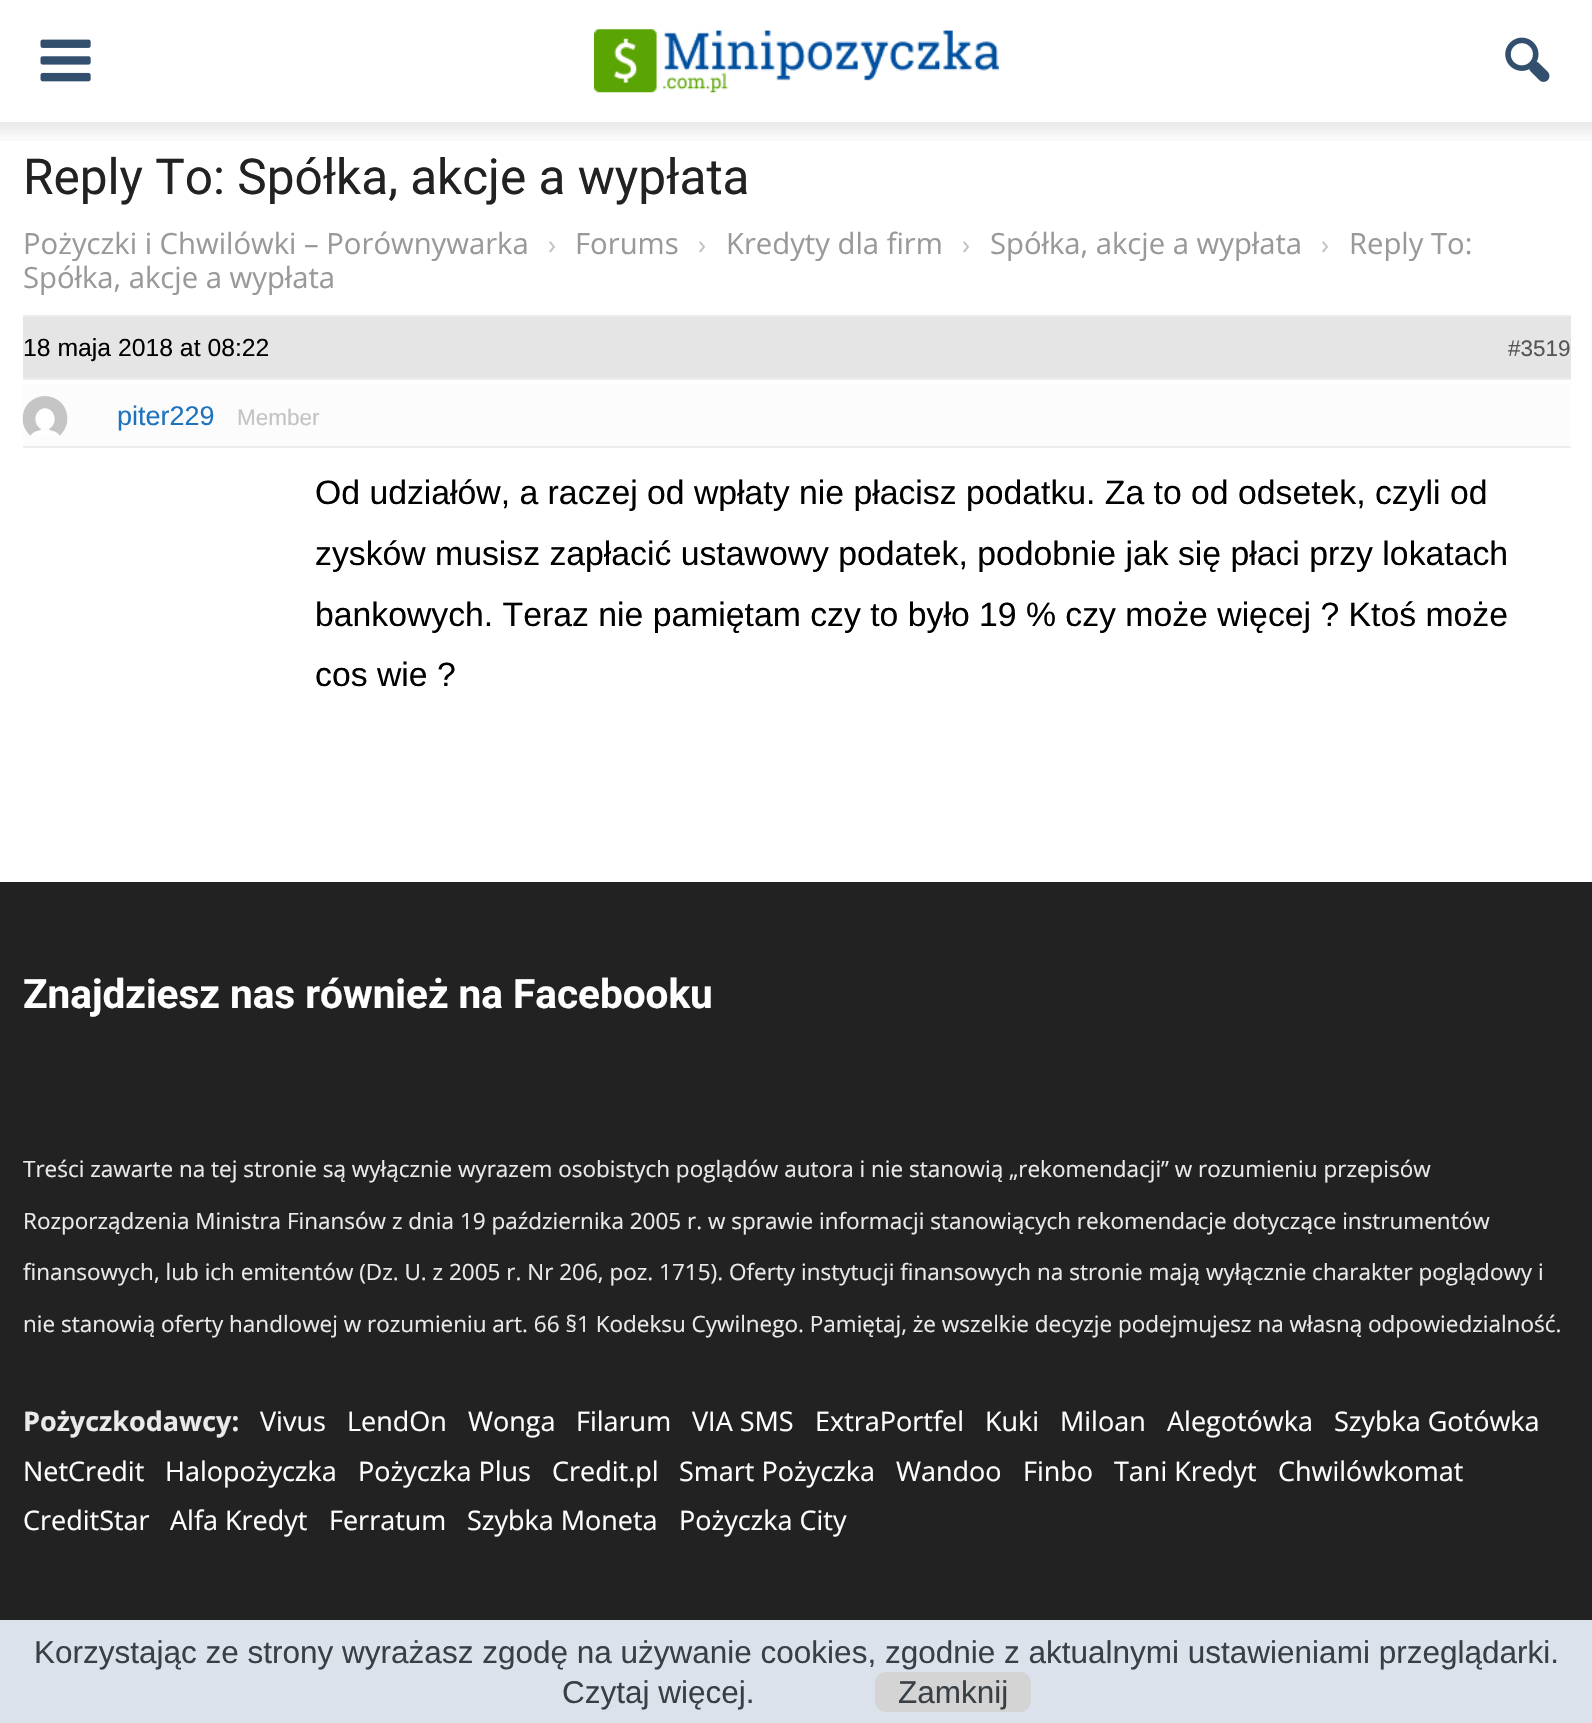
void draw(SkCanvas* canvas) {
  SkPaint paint;
  paint.setAntiAlias(true);
  auto face = [&](const char* family, int weight, float size, bool italic = false) {
    SkFontStyle style(weight, SkFontStyle::kNormal_Width,
      italic ? SkFontStyle::kItalic_Slant : SkFontStyle::kUpright_Slant);
    SkFont result(fontMgr->matchFamilyStyle(family, style), size);
    result.setSubpixel(true);
    return result;
  };
  auto paste = [&](const char* path, float x, float y, float w, float h) {
    auto image = SkImages::DeferredFromEncodedData(SkData::MakeFromFileName(path));
    canvas->drawImageRect(image, SkRect::MakeXYWH(x, y, w, h), SkSamplingOptions());
  };
  canvas->clear(0xffffffff);
  paste("img/1.png", 40, 39, 51, 43);
  paste("img/2.png", 594, 29, 405, 64);
  paste("img/3.png", 1505, 37, 45, 45);
  paste("img/4.png", 0, 122, 1592, 19);
  {
    const struct { float x, y, w, h; SkColor color; } items[] = {
      {23, 317, 1548, 61, 0xffe5e5e5},
      {23, 315, 1548, 2, 0xffededed},
      {23, 378, 1548, 2, 0xffededed},
      {23, 383, 1548, 63, 0xfffcfcfc},
      {23, 446, 1548, 2, 0xffededed},
    };
    for (auto [x, y, w, h, color] : items) {
      paint.setColor(color);
      canvas->drawRect(SkRect::MakeXYWH(x, y, w, h), paint);
    }
  }
  paste("img/5.png", 22, 396, 46, 40);
  paint.setColor(0xff222222);
  canvas->drawRect(SkRect::MakeXYWH(0, 882, 1592, 738), paint);
  paint.setColor(0xffdbe2ec);
  canvas->drawRect(SkRect::MakeXYWH(0, 1620, 1592, 103), paint);
  paint.setColor(0xffd4d4d4);
  canvas->drawRoundRect(SkRect::MakeXYWH(875, 1672, 156, 40), 11, 11, paint);
  auto f0 = face("Roboto", 400, 49.5f);
  paint.setColor(0xff222222);
  canvas->drawString("Reply To: Spółka, akcje a wypłata", 23, 194, f0, paint);
  auto f1 = face("Open Sans", 400, 29.25f);
  paint.setColor(0xff9a9999);
  canvas->drawString("Pożyczki i Chwilówki – Porównywarka", 23, 254, f1, paint);
  auto f2 = face("Open Sans", 400, 27);
  paint.setColor(0xffc3c3c3);
  canvas->drawString("›", 548, 254, f2, paint);
  paint.setColor(0xff9a9999);
  canvas->drawString("Forums", 575, 254, f1, paint);
  paint.setColor(0xffc3c3c3);
  canvas->drawString("›", 698, 254, f2, paint);
  paint.setColor(0xff9a9999);
  canvas->drawString("Kredyty dla firm", 726, 254, f1, paint);
  paint.setColor(0xffc3c3c3);
  canvas->drawString("›", 962, 254, f2, paint);
  paint.setColor(0xff9a9999);
  canvas->drawString("Spółka, akcje a wypłata", 990, 254, f1, paint);
  paint.setColor(0xffc3c3c3);
  canvas->drawString("›", 1321, 254, f2, paint);
  paint.setColor(0xff9a9999);
  canvas->drawString("Reply To:", 1349, 254, f1, paint);
  canvas->drawString("Spółka, akcje a wypłata", 23, 288, f1, paint);
  auto f3 = face("Liberation Sans", 400, 24.75f);
  paint.setColor(0xff000000);
  canvas->drawString("18 maja 2018 at 08:22", 23, 356, f3, paint);
  auto f4 = face("Liberation Sans", 400, 22.5f);
  paint.setColor(0xff555555);
  canvas->drawString("#3519", 1508, 356, f4, paint);
  auto f5 = face("Liberation Sans", 400, 27);
  paint.setColor(0xff1e73be);
  canvas->drawString("piter229", 117, 425, f5, paint);
  paint.setColor(0xffc3c3c3);
  canvas->drawString("Member", 237, 425, f4, paint);
  auto f6 = face("Liberation Sans", 400, 33.75f);
  paint.setColor(0xff000000);
  {
    const struct { const char* s; float x, y; } items[] = {
      {"Od udziałów, a raczej od wpłaty nie płacisz podatku. Za to od odsetek, czyli od", 315, 504},
      {"zysków musisz zapłacić ustawowy podatek, podobnie jak się płaci przy lokatach", 315, 565},
      {"bankowych. Teraz nie pamiętam czy to było 19 % czy może więcej ? Ktoś może", 315, 626},
      {"cos wie ?", 315, 686},
    };
    for (auto [s, x, y] : items) {
      canvas->drawString(s, x, y, f6, paint);
    }
  }
  auto f7 = face("Roboto", 700, 40.5f);
  paint.setColor(0xffffffff);
  canvas->drawString("Znajdziesz nas również na Facebooku", 23, 1008, f7, paint);
  auto f8 = face("Open Sans", 400, 22.5f);
  paint.setColor(0xffeaeaea);
  {
    const struct { const char* s; float x, y; } items[] = {
      {"Treści zawarte na tej stronie są wyłącznie wyrazem osobistych poglądów autora i nie stanowią „rekomendacji” w rozumieniu przepisów", 23, 1177},
      {"Rozporządzenia Ministra Finansów z dnia 19 października 2005 r. w sprawie informacji stanowiących rekomendacje dotyczące instrumentów", 23, 1229},
      {"finansowych, lub ich emitentów (Dz. U. z 2005 r. Nr 206, poz. 1715). Oferty instytucji finansowych na stronie mają wyłącznie charakter poglądowy i", 23, 1280},
      {"nie stanowią oferty handlowej w rozumieniu art. 66 §1 Kodeksu Cywilnego. Pamiętaj, że wszelkie decyzje podejmujesz na własną odpowiedzialność.", 23, 1332},
    };
    for (auto [s, x, y] : items) {
      canvas->drawString(s, x, y, f8, paint);
    }
  }
  auto f9 = face("Open Sans", 700, 27);
  canvas->drawString("Pożyczkodawcy:", 23, 1431, f9, paint);
  paint.setColor(0xffffffff);
  {
    const struct { const char* s; float x, y; } items[] = {
      {"Vivus", 260, 1431},
      {"LendOn", 347, 1431},
      {"Wonga", 468, 1431},
      {"Filarum", 576, 1431},
      {"VIA SMS", 692, 1431},
      {"ExtraPortfel", 815, 1431},
      {"Kuki", 985, 1431},
      {"Miloan", 1060, 1431},
      {"Alegotówka", 1167, 1431},
      {"Szybka Gotówka", 1334, 1431},
      {"NetCredit", 23, 1481},
      {"Halopożyczka", 165, 1481},
      {"Pożyczka Plus", 358, 1481},
      {"Credit.pl", 552, 1481},
      {"Smart Pożyczka", 679, 1481},
      {"Wandoo", 896, 1481},
      {"Finbo", 1023, 1481},
      {"Tani Kredyt", 1114, 1481},
      {"Chwilówkomat", 1278, 1481},
      {"CreditStar", 23, 1530},
      {"Alfa Kredyt", 170, 1530},
      {"Ferratum", 329, 1530},
      {"Szybka Moneta", 467, 1530},
      {"Pożyczka City", 679, 1530},
    };
    for (auto [s, x, y] : items) {
      canvas->drawString(s, x, y, f2, paint);
    }
  }
  auto f10 = face("Liberation Sans", 400, 31.5f);
  paint.setColor(0xff384046);
  {
    const struct { const char* s; float x, y; } items[] = {
      {"Korzystając ze strony wyrażasz zgodę na używanie cookies, zgodnie z aktualnymi ustawieniami przeglądarki.", 34, 1663},
      {"Czytaj więcej.", 562, 1703},
      {"Zamknij", 898, 1703},
    };
    for (auto [s, x, y] : items) {
      canvas->drawString(s, x, y, f10, paint);
    }
  }
}
